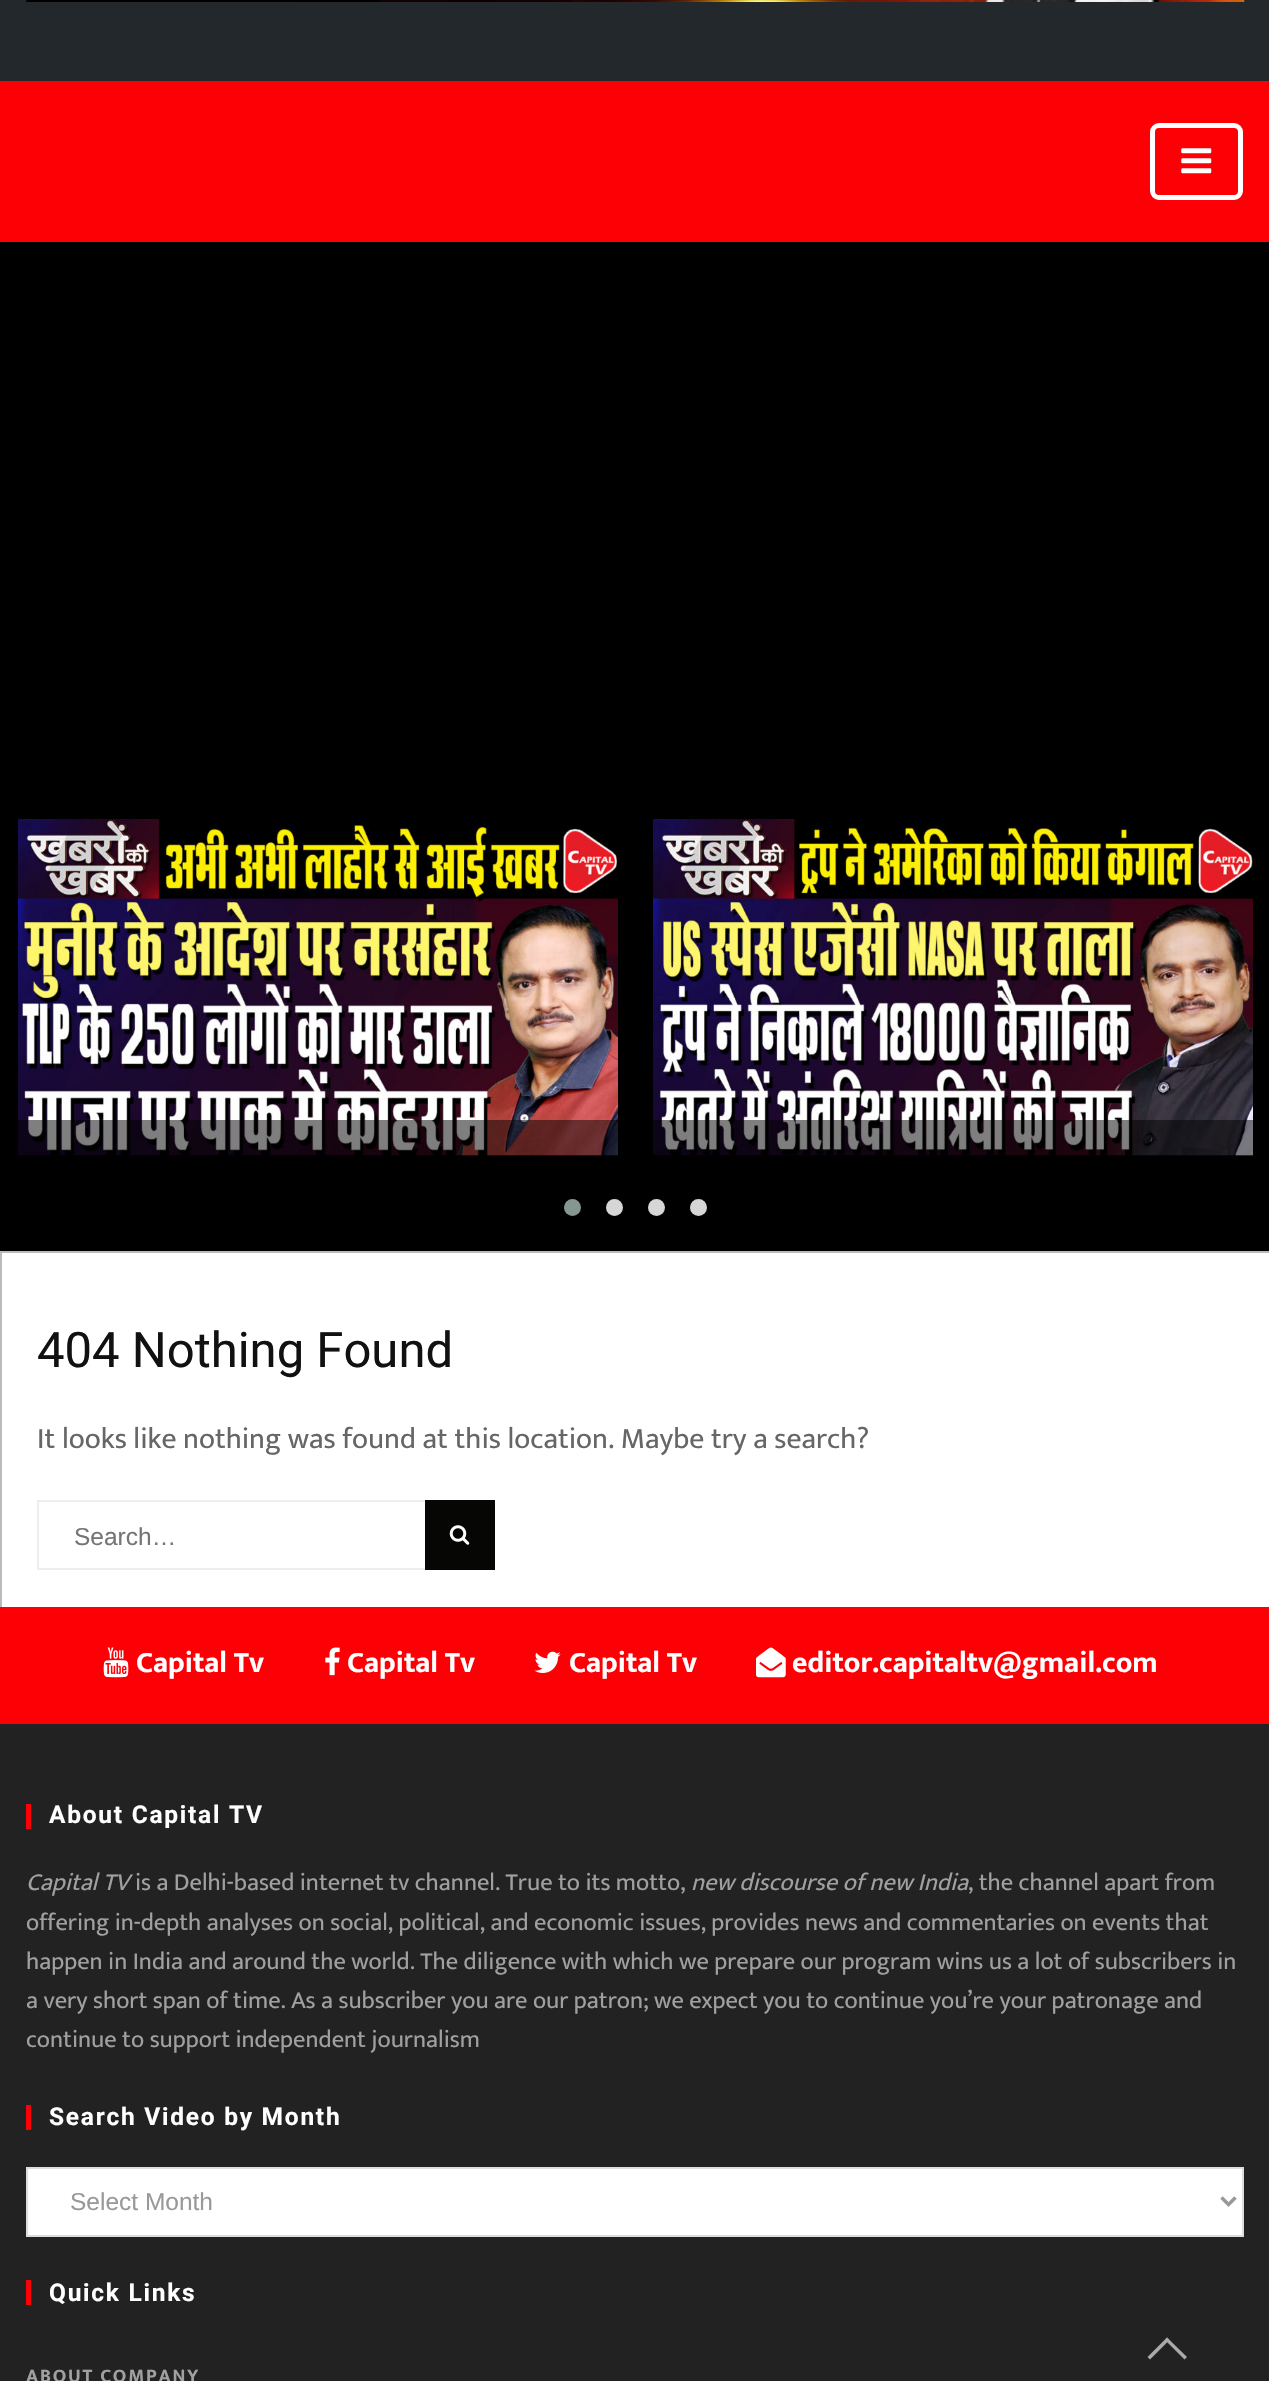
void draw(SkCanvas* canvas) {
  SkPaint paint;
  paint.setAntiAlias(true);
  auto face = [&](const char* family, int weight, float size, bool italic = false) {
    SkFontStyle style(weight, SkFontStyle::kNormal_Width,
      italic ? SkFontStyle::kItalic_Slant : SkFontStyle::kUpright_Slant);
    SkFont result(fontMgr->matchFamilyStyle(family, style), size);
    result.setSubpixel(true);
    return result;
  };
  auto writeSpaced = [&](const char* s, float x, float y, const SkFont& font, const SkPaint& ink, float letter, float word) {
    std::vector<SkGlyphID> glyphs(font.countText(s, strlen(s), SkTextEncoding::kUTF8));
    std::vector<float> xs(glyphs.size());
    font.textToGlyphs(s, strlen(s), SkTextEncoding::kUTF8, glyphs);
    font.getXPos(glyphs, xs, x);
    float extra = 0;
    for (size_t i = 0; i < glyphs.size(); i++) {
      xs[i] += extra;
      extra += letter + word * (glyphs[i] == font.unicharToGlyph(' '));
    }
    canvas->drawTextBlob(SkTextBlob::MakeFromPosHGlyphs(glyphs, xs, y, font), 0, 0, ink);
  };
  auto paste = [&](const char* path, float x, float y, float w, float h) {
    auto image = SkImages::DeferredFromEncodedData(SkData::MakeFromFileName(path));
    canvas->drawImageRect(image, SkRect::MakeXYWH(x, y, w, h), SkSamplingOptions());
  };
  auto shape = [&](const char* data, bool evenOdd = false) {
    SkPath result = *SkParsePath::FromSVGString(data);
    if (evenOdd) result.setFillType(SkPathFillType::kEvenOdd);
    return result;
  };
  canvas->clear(0xffffffff);
  paint.setColor(0xff23282d);
  canvas->drawRect(SkRect::MakeXYWH(0, 0, 1269, 81), paint);
  paste("img/1.png", 26, 0, 1219, 2);
  paint.setColor(0xfffd0005);
  canvas->drawRect(SkRect::MakeXYWH(0, 81, 1269, 161), paint);
  paint.setStroke(true);
  paint.setStrokeWidth(5);
  paint.setColor(0xffffffff);
  canvas->drawRoundRect(SkRect::MakeXYWH(1152.5f, 125.5f, 88, 72), 6.5f, 6.5f, paint);
  paste("img/2.png", 1181, 148, 31, 26);
  paint.setStroke(false);
  paint.setColor(0xff000000);
  canvas->drawRect(SkRect::MakeXYWH(0, 242, 1269, 1009), paint);
  paste("img/3.png", 18, 819, 600, 337);
  paint.setColor(0x80000000);
  canvas->drawRect(SkRect::MakeXYWH(18, 1120, 600, 35), paint);
  paste("img/4.png", 653, 819, 600, 337);
  canvas->drawRect(SkRect::MakeXYWH(653, 1120, 600, 35), paint);
  paint.setColor(0xff869791);
  canvas->drawCircle(572.5f, 1207.5f, 8.5f, paint);
  paint.setColor(0xffd6d6d6);
  canvas->drawCircle(614.5f, 1207.5f, 8.5f, paint);
  canvas->drawCircle(656.5f, 1207.5f, 8.5f, paint);
  canvas->drawCircle(698.5f, 1207.5f, 8.5f, paint);
  paint.setColor(0xffbbbbbb);
  canvas->drawRect(SkRect::MakeXYWH(0, 1251, 1269, 2), paint);
  canvas->drawRect(SkRect::MakeXYWH(0, 1251, 2, 356), paint);
  paint.setStroke(true);
  paint.setStrokeWidth(2);
  paint.setColor(0xffeeeeee);
  canvas->drawRect(SkRect::MakeXYWH(38, 1501, 456, 68), paint);
  paint.setStroke(false);
  paint.setColor(0xff060605);
  canvas->drawRect(SkRect::MakeXYWH(425, 1500, 70, 70), paint);
  paste("img/5.png", 449, 1525, 21, 20);
  paint.setColor(0xff222222);
  canvas->drawRect(SkRect::MakeXYWH(0, 1724, 1269, 657), paint);
  paint.setColor(0xfffd0005);
  canvas->drawRect(SkRect::MakeXYWH(0, 1607, 1269, 117), paint);
  paste("img/6.png", 103, 1647, 26, 31);
  paste("img/7.png", 325, 1647, 15, 29);
  paste("img/8.png", 534, 1651, 27, 22);
  paste("img/9.png", 756, 1647, 30, 31);
  canvas->drawRect(SkRect::MakeXYWH(26, 1804, 5, 25), paint);
  canvas->drawRect(SkRect::MakeXYWH(26, 2105, 5, 25), paint);
  paint.setColor(0xffffffff);
  canvas->drawRect(SkRect::MakeXYWH(27, 2168, 1216, 68), paint);
  paint.setStroke(true);
  paint.setColor(0xffdddddd);
  canvas->drawRect(SkRect::MakeXYWH(27, 2168, 1216, 68), paint);
  paint.setStrokeWidth(3.5f);
  paint.setColor(0xff999999);
  canvas->drawPath(shape("M1221.5 2197.5L1228.5 2204.5L1235.5 2197.5"), paint);
  paint.setStroke(false);
  paint.setColor(0xfffd0005);
  canvas->drawRect(SkRect::MakeXYWH(26, 2280, 5, 25), paint);
  paint.setColor(0xffaaaaaa);
  canvas->drawPath(shape("M1147.5 2357L1167 2337.5L1169.5 2340L1150 2359.5Z"), paint);
  canvas->drawPath(shape("M1165 2340L1167 2337.5L1187 2357L1184.5 2359.5Z"), paint);
  auto f0 = face("Roboto", 400, 49);
  paint.setColor(0xff111111);
  canvas->drawString("404 Nothing Found", 37, 1367, f0, paint);
  auto f1 = face("Mukta", 400, 29.75f);
  paint.setColor(0xff666666);
  canvas->drawString("It looks like nothing was found at this location. Maybe try a search?", 37, 1448, f1, paint);
  auto f2 = face("Liberation Sans", 400, 24.5f);
  paint.setColor(0xff757575);
  canvas->drawString("Search…", 74, 1545, f2, paint);
  auto f3 = face("Mukta", 700, 29.75f);
  paint.setColor(0xffffffff);
  {
    const struct { const char* s; float x, y; } items[] = {
      {"Capital Tv", 136, 1672},
      {"Capital Tv", 347, 1672},
      {"Capital Tv", 569, 1672},
      {"editor.capitaltv@gmail.com", 792, 1672},
    };
    for (auto [s, x, y] : items) {
      canvas->drawString(s, x, y, f3, paint);
    }
  }
  auto f4 = face("Roboto", 700, 24.5f);
  writeSpaced("About Capital TV", 49, 1823, f4, paint, 1.75f, 0);
  auto f5 = face("Mukta", 400, 24.5f, true);
  paint.setColor(0xffa0a0a0);
  canvas->drawString("Capital TV", 26, 1890, f5, paint);
  auto f6 = face("Mukta", 400, 24.5f);
  canvas->drawString("is a Delhi-based internet tv channel. True to its motto,", 135, 1890, f6, paint);
  canvas->drawString("new discourse of new India", 691, 1890, f5, paint);
  {
    const struct { const char* s; float x, y; } items[] = {
      {", the channel apart from", 968, 1890},
      {"offering in-depth analyses on social, political, and economic issues, provides news and commentaries on events that", 26, 1930},
      {"happen in India and around the world. The diligence with which we prepare our program wins us a lot of subscribers in", 26, 1969},
      {"a very short span of time. As a subscriber you are our patron; we expect you to continue you’re your patronage and", 26, 2008},
      {"continue to support independent journalism", 26, 2047},
    };
    for (auto [s, x, y] : items) {
      canvas->drawString(s, x, y, f6, paint);
    }
  }
  paint.setColor(0xffffffff);
  writeSpaced("Search Video by Month", 49, 2125, f4, paint, 1.75f, 0);
  paint.setColor(0xff999999);
  canvas->drawString("Select Month", 70, 2210, f2, paint);
  paint.setColor(0xffffffff);
  writeSpaced("Quick Links", 49, 2301, f4, paint, 1.75f, 0);
  auto f7 = face("Mukta", 700, 19.25f);
  paint.setColor(0xffa0a0a0);
  writeSpaced("ABOUT COMPANY", 26, 2382, f7, paint, 1.75f, 0);
}
